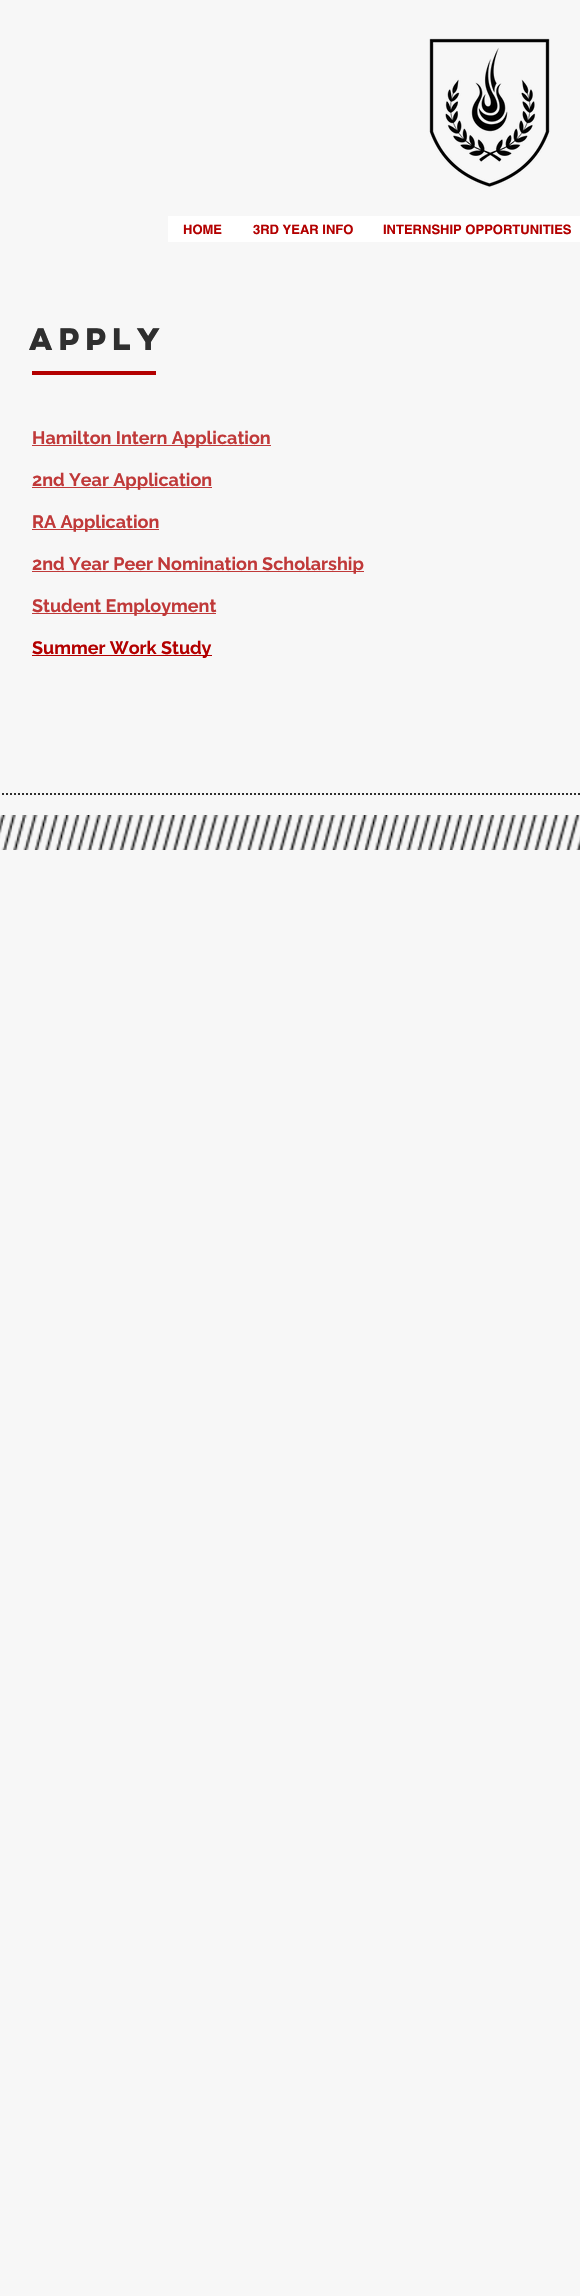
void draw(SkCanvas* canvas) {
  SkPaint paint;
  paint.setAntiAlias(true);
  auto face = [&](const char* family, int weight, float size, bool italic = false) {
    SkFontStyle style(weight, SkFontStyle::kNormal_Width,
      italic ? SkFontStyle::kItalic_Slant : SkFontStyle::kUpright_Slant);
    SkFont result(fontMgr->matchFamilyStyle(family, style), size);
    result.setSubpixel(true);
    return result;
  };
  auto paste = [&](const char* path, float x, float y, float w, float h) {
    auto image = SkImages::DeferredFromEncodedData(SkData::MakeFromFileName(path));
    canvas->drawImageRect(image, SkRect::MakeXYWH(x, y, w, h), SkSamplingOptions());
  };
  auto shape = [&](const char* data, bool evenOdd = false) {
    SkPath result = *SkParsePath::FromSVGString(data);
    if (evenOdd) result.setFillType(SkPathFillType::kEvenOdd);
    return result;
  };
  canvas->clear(0xfff7f7f7);
  paste("img/1.png", 429, 38, 121, 149);
  {
    const struct { float x, y, w, h; SkColor color; } items[] = {
      {168, 216, 412, 26, 0xffffffff},
      {32, 371, 124, 4, 0xffb30000},
      {32, 445, 239, 1, 0xffc03939},
      {32, 487, 180, 1, 0xffc03939},
      {32, 529, 127, 1, 0xffc03939},
      {32, 571, 332, 1, 0xffc03939},
      {32, 613, 184, 1, 0xffc03939},
      {32, 655, 180, 1, 0xffb30000},
    };
    for (auto [x, y, w, h, color] : items) {
      paint.setColor(color);
      canvas->drawRect(SkRect::MakeXYWH(x, y, w, h), paint);
    }
  }
  paint.setStroke(true);
  paint.setStrokeWidth(2);
  paint.setColor(0xff2f2f2f);
  paint.setPathEffect(SkDashPathEffect::Make({{2, 2}}, 0));
  canvas->drawPath(shape("M-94 794H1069"), paint);
  paint.setPathEffect(nullptr);
  paste("img/2.png", 0, 815, 580, 35);
  auto f0 = face("helvetica", 700, 13);
  paint.setStroke(false);
  paint.setColor(0xffb30000);
  {
    const struct { const char* s; float x, y; } items[] = {
      {"HOME", 183, 234},
      {"3RD YEAR INFO", 253, 234},
      {"INTERNSHIP OPPORTUNITIES", 383, 234},
    };
    for (auto [s, x, y] : items) {
      canvas->drawString(s, x, y, f0, paint);
    }
  }
  auto f1 = face("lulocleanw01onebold", 700, 28);
  paint.setColor(0xff2f2f2f);
  canvas->drawString("APPLY", 29, 350, f1, paint);
  auto f2 = face("Raleway", 700, 18);
  paint.setColor(0xffc03939);
  {
    const struct { const char* s; float x, y; } items[] = {
      {"Hamilton Intern Application", 32, 444},
      {"2nd Year Application", 32, 486},
      {"RA Application", 32, 528},
      {"2nd Year Peer Nomination Scholarship", 32, 570},
    };
    for (auto [s, x, y] : items) {
      canvas->drawString(s, x, y, f2, paint);
    }
  }
  auto f3 = face("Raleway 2", 700, 18);
  canvas->drawString("Student Employment", 32, 612, f3, paint);
  paint.setColor(0xffb30000);
  canvas->drawString("Summer Work Study", 32, 654, f3, paint);
}
